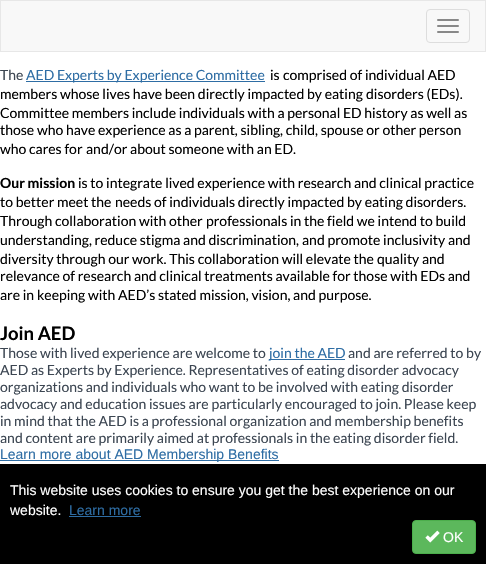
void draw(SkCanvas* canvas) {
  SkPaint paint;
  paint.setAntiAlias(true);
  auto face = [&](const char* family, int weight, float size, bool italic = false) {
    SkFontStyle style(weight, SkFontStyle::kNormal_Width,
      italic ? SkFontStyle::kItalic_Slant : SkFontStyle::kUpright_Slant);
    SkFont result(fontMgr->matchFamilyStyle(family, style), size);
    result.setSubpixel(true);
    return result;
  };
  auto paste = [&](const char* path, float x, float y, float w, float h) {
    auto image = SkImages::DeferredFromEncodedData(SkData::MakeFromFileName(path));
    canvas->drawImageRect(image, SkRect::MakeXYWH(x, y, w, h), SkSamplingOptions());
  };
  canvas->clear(0xffffffff);
  paint.setColor(0xfff8f8f8);
  canvas->drawRect(SkRect::MakeXYWH(0.5f, 0.5f, 485, 51), paint);
  paint.setStroke(true);
  paint.setStrokeWidth(1);
  paint.setColor(0xffe7e7e7);
  canvas->drawRect(SkRect::MakeXYWH(0.5f, 0.5f, 485, 51), paint);
  paint.setColor(0xffdddddd);
  canvas->drawRoundRect(SkRect::MakeXYWH(426.5f, 9.5f, 43, 33), 3.5f, 3.5f, paint);
  paint.setStroke(false);
  paint.setColor(0xff888888);
  canvas->drawRoundRect(SkRect::MakeXYWH(437, 19, 22, 2), 1, 1, paint);
  canvas->drawRoundRect(SkRect::MakeXYWH(437, 25, 22, 2), 1, 1, paint);
  canvas->drawRoundRect(SkRect::MakeXYWH(437, 31, 22, 2), 1, 1, paint);
  {
    const struct { float x, y, w, h; SkColor color; } items[] = {
      {26, 81, 239, 1, 0xff2e6da4},
      {269, 359, 76, 1, 0xff2e6da4},
      {0, 460, 279, 1, 0xff2e6da4},
      {0, 464, 486, 100, 0xff000000},
      {69, 516, 72, 1, 0xff2e6da4},
    };
    for (auto [x, y, w, h, color] : items) {
      paint.setColor(color);
      canvas->drawRect(SkRect::MakeXYWH(x, y, w, h), paint);
    }
  }
  paint.setColor(0xff5cb85c);
  canvas->drawRoundRect(SkRect::MakeXYWH(412.5f, 520.5f, 63, 33), 3.5f, 3.5f, paint);
  paint.setStroke(true);
  paint.setColor(0xff4cae4c);
  canvas->drawRoundRect(SkRect::MakeXYWH(412.5f, 520.5f, 63, 33), 3.5f, 3.5f, paint);
  paste("img/1.png", 425, 530, 15, 13);
  auto f0 = face("Lato", 400, 14);
  paint.setStroke(false);
  paint.setColor(0xff3c4652);
  canvas->drawString("The", 0, 80, f0, paint);
  paint.setColor(0xff2e6da4);
  canvas->drawString("AED Experts by Experience Committee", 26, 80, f0, paint);
  paint.setColor(0xff000000);
  {
    const struct { const char* s; float x, y; } items[] = {
      {"is", 270, 80},
      {"comprised of individual AED", 283, 80},
      {"members whose lives have been directly impacted by eating", 0, 99},
      {"disorders (EDs).", 366, 99},
      {"Committee members include individuals with a personal ED history as well as", 0, 118},
      {"those who have experience as a parent, sibling, child, spouse or other person", 0, 135},
      {"who cares for", 0, 154},
      {"and/or about someone with an ED.", 86, 154},
    };
    for (auto [s, x, y] : items) {
      canvas->drawString(s, x, y, f0, paint);
    }
  }
  auto f1 = face("Lato", 700, 14);
  canvas->drawString("Our mission", 0, 188, f1, paint);
  {
    const struct { const char* s; float x, y; } items[] = {
      {"is to integrate lived experience with research and clinical practice", 78, 188},
      {"to better meet the", 0, 207},
      {"needs of individuals directly impacted by eating disorders.", 115, 207},
      {"Through collaboration with other", 0, 226},
      {"professionals in the field we intend to build", 206, 226},
      {"understanding, reduce stigma and discrimination,", 0, 245},
      {"and promote inclusivity and", 302, 245},
      {"diversity through our work. This collaboration will elevate the", 0, 264},
      {"quality and", 377, 264},
      {"relevance of research and clinical treatments available for those with EDs and", 0, 281},
      {"are in", 0, 300},
      {"keeping with AED’s stated mission, vision, and purpose.", 37, 300},
    };
    for (auto [s, x, y] : items) {
      canvas->drawString(s, x, y, f0, paint);
    }
  }
  auto f2 = face("Lato", 700, 18.5f);
  canvas->drawString("Join AED", 0, 340, f2, paint);
  paint.setColor(0xff3c4652);
  canvas->drawString("Those with lived experience are welcome to", 0, 358, f0, paint);
  paint.setColor(0xff2e6da4);
  canvas->drawString("join the AED", 269, 358, f0, paint);
  paint.setColor(0xff3c4652);
  {
    const struct { const char* s; float x, y; } items[] = {
      {"and are referred to by", 348, 358},
      {"AED as Experts by Experience. Representatives of eating disorder advocacy", 0, 375},
      {"organizations and individuals who want to be involved with eating disorder", 0, 392},
      {"advocacy and education issues are particularly encouraged to join. Please keep", 0, 409},
      {"in mind that the AED is a professional organization and membership benefits", 0, 426},
      {"and content are primarily aimed at professionals in the eating disorder field.", 0, 443},
    };
    for (auto [s, x, y] : items) {
      canvas->drawString(s, x, y, f0, paint);
    }
  }
  auto f3 = face("Liberation Sans", 400, 14);
  paint.setColor(0xff2e6da4);
  canvas->drawString("Learn more about AED Membership Benefits", 0, 459, f3, paint);
  paint.setColor(0xffffffff);
  canvas->drawString("This website uses cookies to ensure you get the best experience on our", 10, 495, f3, paint);
  canvas->drawString("website.", 10, 515, f3, paint);
  paint.setColor(0xff2e6da4);
  canvas->drawString("Learn more", 69, 515, f3, paint);
  paint.setColor(0xffffffff);
  canvas->drawString("OK", 443, 542, f3, paint);
}
